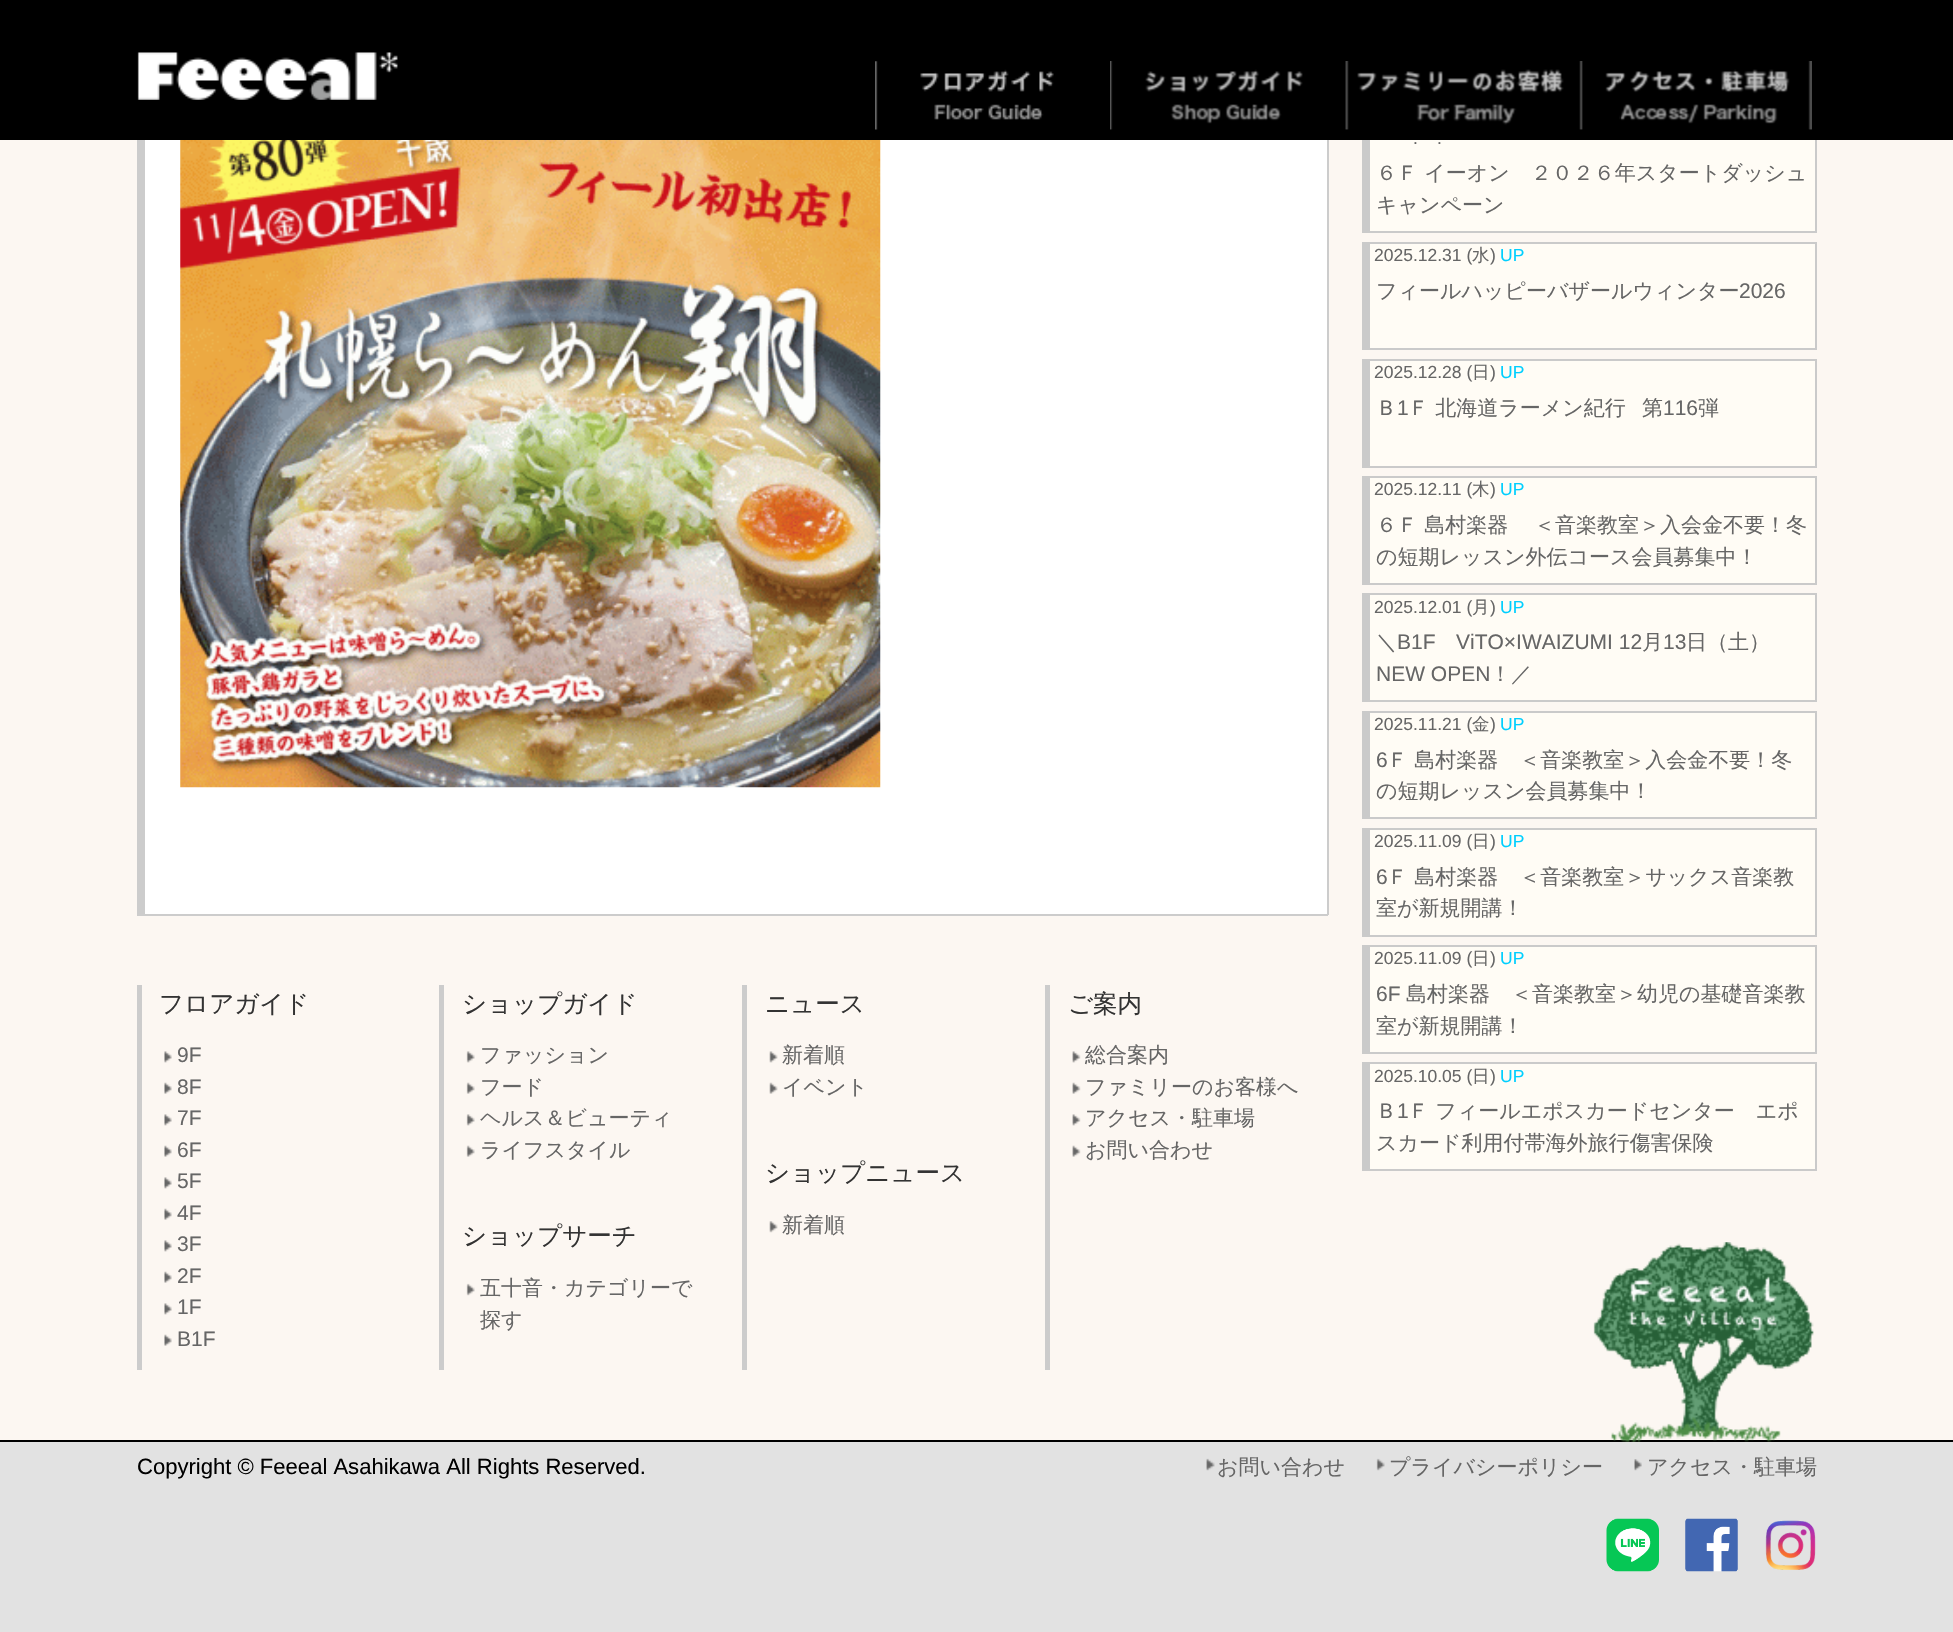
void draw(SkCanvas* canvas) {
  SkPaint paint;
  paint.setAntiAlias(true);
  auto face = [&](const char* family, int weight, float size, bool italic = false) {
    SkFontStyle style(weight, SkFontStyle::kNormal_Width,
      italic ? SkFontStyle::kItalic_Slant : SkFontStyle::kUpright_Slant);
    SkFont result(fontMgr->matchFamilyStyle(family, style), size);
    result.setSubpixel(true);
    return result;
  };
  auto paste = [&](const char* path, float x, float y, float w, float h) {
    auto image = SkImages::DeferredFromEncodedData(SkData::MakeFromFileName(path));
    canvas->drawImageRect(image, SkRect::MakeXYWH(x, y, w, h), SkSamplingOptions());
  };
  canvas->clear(0xfffcf7f2);
  paint.setColor(0xff000000);
  canvas->drawRect(SkRect::MakeXYWH(0, 0, 1953, 140), paint);
  paste("img/1.png", 137, 52, 261, 48);
  paste("img/2.png", 875, 61, 179, 69);
  paste("img/3.png", 1110, 61, 193, 69);
  paste("img/4.png", 1345, 61, 219, 69);
  paste("img/5.png", 1579, 61, 233, 69);
  {
    const struct { float x, y, w, h; SkColor color; } items[] = {
      {145, 140, 1182, 774, 0xffffffff},
      {1327, 140, 2, 775, 0xffcccccc},
      {137, 914, 1191, 2, 0xffcccccc},
      {137, 140, 8, 775, 0xffcccccc},
    };
    for (auto [x, y, w, h, color] : items) {
      paint.setColor(color);
      canvas->drawRect(SkRect::MakeXYWH(x, y, w, h), paint);
    }
  }
  paste("img/6.png", 180, 140, 701, 648);
  canvas->drawRect(SkRect::MakeXYWH(137, 985, 5, 385), paint);
  paste("img/7.png", 164, 1051, 8, 12);
  paste("img/8.png", 164, 1082, 8, 12);
  paste("img/7.png", 164, 1114, 8, 12);
  paste("img/8.png", 164, 1145, 8, 12);
  paste("img/7.png", 164, 1177, 8, 12);
  paste("img/8.png", 164, 1208, 8, 12);
  paste("img/7.png", 164, 1240, 8, 12);
  paste("img/8.png", 164, 1271, 8, 12);
  paste("img/7.png", 164, 1303, 8, 12);
  paste("img/8.png", 164, 1334, 8, 12);
  canvas->drawRect(SkRect::MakeXYWH(439, 985, 5, 385), paint);
  paste("img/9.png", 466, 1051, 9, 12);
  paste("img/10.png", 466, 1082, 9, 12);
  paste("img/9.png", 466, 1114, 9, 12);
  paste("img/10.png", 466, 1145, 9, 12);
  paste("img/11.png", 466, 1283, 9, 13);
  canvas->drawRect(SkRect::MakeXYWH(742, 985, 5, 385), paint);
  paste("img/12.png", 769, 1051, 9, 12);
  paste("img/13.png", 769, 1082, 9, 12);
  paste("img/14.png", 769, 1221, 9, 12);
  canvas->drawRect(SkRect::MakeXYWH(1045, 985, 5, 385), paint);
  paste("img/15.png", 1072, 1051, 9, 12);
  paste("img/16.png", 1072, 1082, 9, 12);
  paste("img/15.png", 1072, 1114, 9, 12);
  paste("img/16.png", 1072, 1145, 9, 12);
  {
    const struct { float x, y, w, h; SkColor color; } items[] = {
      {1370, 140, 445, 91, 0xfffffcf5},
      {1815, 140, 2, 93, 0xffcacaca},
      {1362, 231, 455, 2, 0xffcacaca},
      {1362, 140, 8, 93, 0xffcacaca},
      {1370, 244, 445, 104, 0xfffffcf5},
      {1362, 242, 455, 2, 0xffcacaca},
      {1815, 242, 2, 108, 0xffcacaca},
      {1362, 348, 455, 2, 0xffcacaca},
      {1362, 242, 8, 108, 0xffcacaca},
      {1370, 361, 445, 105, 0xfffffcf5},
      {1362, 359, 455, 2, 0xffcacaca},
      {1815, 359, 2, 108, 0xffcacaca},
      {1362, 466, 455, 2, 0xffcacaca},
      {1362, 359, 8, 108, 0xffcacaca},
      {1370, 478, 445, 105, 0xfffffcf5},
      {1362, 476, 455, 2, 0xffcacaca},
      {1815, 476, 2, 109, 0xffcacaca},
      {1362, 583, 455, 2, 0xffcacaca},
      {1362, 476, 8, 109, 0xffcacaca},
      {1370, 595, 445, 105, 0xfffffcf5},
      {1362, 593, 455, 2, 0xffcacaca},
      {1815, 593, 2, 109, 0xffcacaca},
      {1362, 700, 455, 2, 0xffcacaca},
      {1362, 593, 8, 109, 0xffcacaca},
      {1370, 713, 445, 104, 0xfffffcf5},
      {1362, 711, 455, 2, 0xffcacaca},
      {1815, 711, 2, 108, 0xffcacaca},
      {1362, 817, 455, 2, 0xffcacaca},
      {1362, 711, 8, 108, 0xffcacaca},
      {1370, 830, 445, 105, 0xfffffcf5},
      {1362, 828, 455, 2, 0xffcacaca},
      {1815, 828, 2, 108, 0xffcacaca},
      {1362, 935, 455, 2, 0xffcacaca},
      {1362, 828, 8, 108, 0xffcacaca},
      {1370, 947, 445, 105, 0xfffffcf5},
      {1362, 945, 455, 2, 0xffcacaca},
      {1815, 945, 2, 109, 0xffcacaca},
      {1362, 1052, 455, 2, 0xffcacaca},
      {1362, 945, 8, 109, 0xffcacaca},
      {1370, 1064, 445, 105, 0xfffffcf5},
      {1362, 1062, 455, 2, 0xffcacaca},
      {1815, 1062, 2, 109, 0xffcacaca},
      {1362, 1169, 455, 2, 0xffcacaca},
      {1362, 1062, 8, 109, 0xffcacaca},
      {0, 1442, 1953, 190, 0xffe2e2e2},
      {0, 1440, 1953, 2, 0xff000000},
    };
    for (auto [x, y, w, h, color] : items) {
      paint.setColor(color);
      canvas->drawRect(SkRect::MakeXYWH(x, y, w, h), paint);
    }
  }
  paste("img/17.png", 1593, 1242, 221, 200);
  paste("img/18.png", 1206, 1458, 9, 13);
  paste("img/19.png", 1376, 1458, 9, 13);
  paste("img/20.png", 1634, 1459, 8, 12);
  paste("img/21.png", 1606, 1518, 53, 54);
  paste("img/22.png", 1685, 1518, 53, 54);
  paste("img/23.png", 1765, 1520, 51, 50);
  auto f0 = face("WenQuanYi Zen Hei", 500, 24.5f);
  paint.setColor(0xff333333);
  canvas->drawString("フロアガイド", 159, 1012, f0, paint);
  auto f1 = face("Liberation Sans", 400, 21);
  paint.setColor(0xff666666);
  {
    const struct { const char* s; float x, y; } items[] = {
      {"9F", 177, 1062},
      {"8F", 177, 1094},
      {"7F", 177, 1125},
      {"6F", 177, 1157},
      {"5F", 177, 1188},
      {"4F", 177, 1220},
      {"3F", 177, 1251},
      {"2F", 177, 1283},
      {"1F", 177, 1314},
      {"B1F", 177, 1346},
    };
    for (auto [s, x, y] : items) {
      canvas->drawString(s, x, y, f1, paint);
    }
  }
  paint.setColor(0xff333333);
  canvas->drawString("ショップガイド", 462, 1012, f0, paint);
  auto f2 = face("WenQuanYi Zen Hei", 500, 21);
  paint.setColor(0xff666666);
  {
    const struct { const char* s; float x, y; } items[] = {
      {"ファッション", 480, 1062},
      {"フード", 480, 1094},
      {"ヘルス＆ビューティ", 480, 1125},
      {"ライフスタイル", 480, 1157},
    };
    for (auto [s, x, y] : items) {
      canvas->drawString(s, x, y, f2, paint);
    }
  }
  paint.setColor(0xff333333);
  canvas->drawString("ショップサーチ", 462, 1244, f0, paint);
  paint.setColor(0xff666666);
  canvas->drawString("五十音・カテゴリーで", 480, 1295, f2, paint);
  canvas->drawString("探す", 480, 1327, f2, paint);
  paint.setColor(0xff333333);
  canvas->drawString("ニュース", 765, 1012, f0, paint);
  paint.setColor(0xff666666);
  canvas->drawString("新着順", 782, 1062, f2, paint);
  canvas->drawString("イベント", 782, 1094, f2, paint);
  paint.setColor(0xff333333);
  canvas->drawString("ショップニュース", 765, 1181, f0, paint);
  paint.setColor(0xff666666);
  canvas->drawString("新着順", 782, 1232, f2, paint);
  paint.setColor(0xff333333);
  canvas->drawString("ご案内", 1068, 1012, f0, paint);
  paint.setColor(0xff666666);
  {
    const struct { const char* s; float x, y; } items[] = {
      {"総合案内", 1085, 1062},
      {"ファミリーのお客様へ", 1085, 1094},
      {"アクセス・駐車場", 1085, 1125},
      {"お問い合わせ", 1085, 1157},
    };
    for (auto [s, x, y] : items) {
      canvas->drawString(s, x, y, f2, paint);
    }
  }
  auto f3 = face("Liberation Sans", 400, 17.5f);
  canvas->drawString(".", 1413, 144, f3, paint);
  canvas->drawString(".", 1437, 144, f3, paint);
  canvas->drawString("６Ｆ イーオン　２０２６年スタートダッシュ", 1376, 180, f2, paint);
  canvas->drawString("キャンペーン", 1376, 212, f2, paint);
  canvas->drawString("2025.12.31 (", 1374, 261, f3, paint);
  auto f4 = face("WenQuanYi Zen Hei", 500, 17.5f);
  canvas->drawString("水", 1472, 261, f4, paint);
  canvas->drawString(")", 1490, 261, f3, paint);
  paint.setColor(0xff00cfff);
  canvas->drawString("UP", 1500, 261, f3, paint);
  paint.setColor(0xff666666);
  canvas->drawString("フィールハッピーバザールウィンター", 1376, 298, f2, paint);
  canvas->drawString("2026", 1739, 298, f1, paint);
  canvas->drawString("2025.12.28 (", 1374, 378, f3, paint);
  canvas->drawString("日", 1472, 378, f4, paint);
  canvas->drawString(")", 1490, 378, f3, paint);
  paint.setColor(0xff00cfff);
  canvas->drawString("UP", 1500, 378, f3, paint);
  paint.setColor(0xff666666);
  canvas->drawString("Ｂ", 1376, 415, f2, paint);
  canvas->drawString("1", 1397, 415, f1, paint);
  canvas->drawString("Ｆ 北海道ラーメン紀行", 1408, 415, f2, paint);
  canvas->drawString("第", 1642, 415, f2, paint);
  canvas->drawString("116", 1663, 415, f1, paint);
  canvas->drawString("弾", 1698, 415, f2, paint);
  canvas->drawString("2025.12.11 (", 1374, 495, f3, paint);
  canvas->drawString("木", 1472, 495, f4, paint);
  canvas->drawString(")", 1490, 495, f3, paint);
  paint.setColor(0xff00cfff);
  canvas->drawString("UP", 1500, 495, f3, paint);
  paint.setColor(0xff666666);
  {
    const struct { const char* s; float x, y; } items[] = {
      {"６Ｆ 島村楽器", 1376, 532},
      {"＜音楽教室＞入会金不要！冬", 1534, 532},
      {"の短期レッスン外伝コース会員募集中！", 1376, 564},
    };
    for (auto [s, x, y] : items) {
      canvas->drawString(s, x, y, f2, paint);
    }
  }
  canvas->drawString("2025.12.01 (", 1374, 613, f3, paint);
  canvas->drawString("月", 1472, 613, f4, paint);
  canvas->drawString(")", 1490, 613, f3, paint);
  paint.setColor(0xff00cfff);
  canvas->drawString("UP", 1500, 613, f3, paint);
  paint.setColor(0xff666666);
  canvas->drawString("＼", 1376, 649, f2, paint);
  canvas->drawString("B1F", 1397, 649, f1, paint);
  canvas->drawString("ViTO×IWAIZUMI 12", 1456, 649, f1, paint);
  canvas->drawString("月", 1642, 649, f2, paint);
  canvas->drawString("13", 1663, 649, f1, paint);
  canvas->drawString("日（土）", 1686, 649, f2, paint);
  canvas->drawString("NEW OPEN", 1376, 681, f1, paint);
  canvas->drawString("！／", 1490, 681, f2, paint);
  canvas->drawString("2025.11.21 (", 1374, 730, f3, paint);
  canvas->drawString("金", 1472, 730, f4, paint);
  canvas->drawString(")", 1490, 730, f3, paint);
  paint.setColor(0xff00cfff);
  canvas->drawString("UP", 1500, 730, f3, paint);
  paint.setColor(0xff666666);
  canvas->drawString("6", 1376, 767, f1, paint);
  canvas->drawString("Ｆ 島村楽器　＜音楽教室＞入会金不要！冬", 1387, 767, f2, paint);
  canvas->drawString("の短期レッスン会員募集中！", 1376, 798, f2, paint);
  canvas->drawString("2025.11.09 (", 1374, 847, f3, paint);
  canvas->drawString("日", 1472, 847, f4, paint);
  canvas->drawString(")", 1490, 847, f3, paint);
  paint.setColor(0xff00cfff);
  canvas->drawString("UP", 1500, 847, f3, paint);
  paint.setColor(0xff666666);
  canvas->drawString("6", 1376, 884, f1, paint);
  canvas->drawString("Ｆ 島村楽器　＜音楽教室＞サックス音楽教", 1387, 884, f2, paint);
  canvas->drawString("室が新規開講！", 1376, 915, f2, paint);
  canvas->drawString("2025.11.09 (", 1374, 964, f3, paint);
  canvas->drawString("日", 1472, 964, f4, paint);
  canvas->drawString(")", 1490, 964, f3, paint);
  paint.setColor(0xff00cfff);
  canvas->drawString("UP", 1500, 964, f3, paint);
  paint.setColor(0xff666666);
  canvas->drawString("6F", 1376, 1001, f1, paint);
  canvas->drawString("島村楽器　＜音楽教室＞幼児の基礎音楽教", 1406, 1001, f2, paint);
  canvas->drawString("室が新規開講！", 1376, 1033, f2, paint);
  canvas->drawString("2025.10.05 (", 1374, 1082, f3, paint);
  canvas->drawString("日", 1472, 1082, f4, paint);
  canvas->drawString(")", 1490, 1082, f3, paint);
  paint.setColor(0xff00cfff);
  canvas->drawString("UP", 1500, 1082, f3, paint);
  paint.setColor(0xff666666);
  canvas->drawString("Ｂ", 1376, 1118, f2, paint);
  canvas->drawString("1", 1397, 1118, f1, paint);
  canvas->drawString("Ｆ フィールエポスカードセンター　エポ", 1408, 1118, f2, paint);
  canvas->drawString("スカード利用付帯海外旅行傷害保険", 1376, 1150, f2, paint);
  auto f5 = face("Liberation Sans", 400, 22.05f);
  paint.setColor(0xff000000);
  canvas->drawString("Copyright © Feeeal Asahikawa All Rights Reserved.", 137, 1474, f5, paint);
  paint.setColor(0xff666666);
  {
    const struct { const char* s; float x, y; } items[] = {
      {"お問い合わせ", 1217, 1474},
      {"プライバシーポリシー", 1389, 1474},
      {"アクセス・駐車場", 1647, 1474},
    };
    for (auto [s, x, y] : items) {
      canvas->drawString(s, x, y, f2, paint);
    }
  }
}
